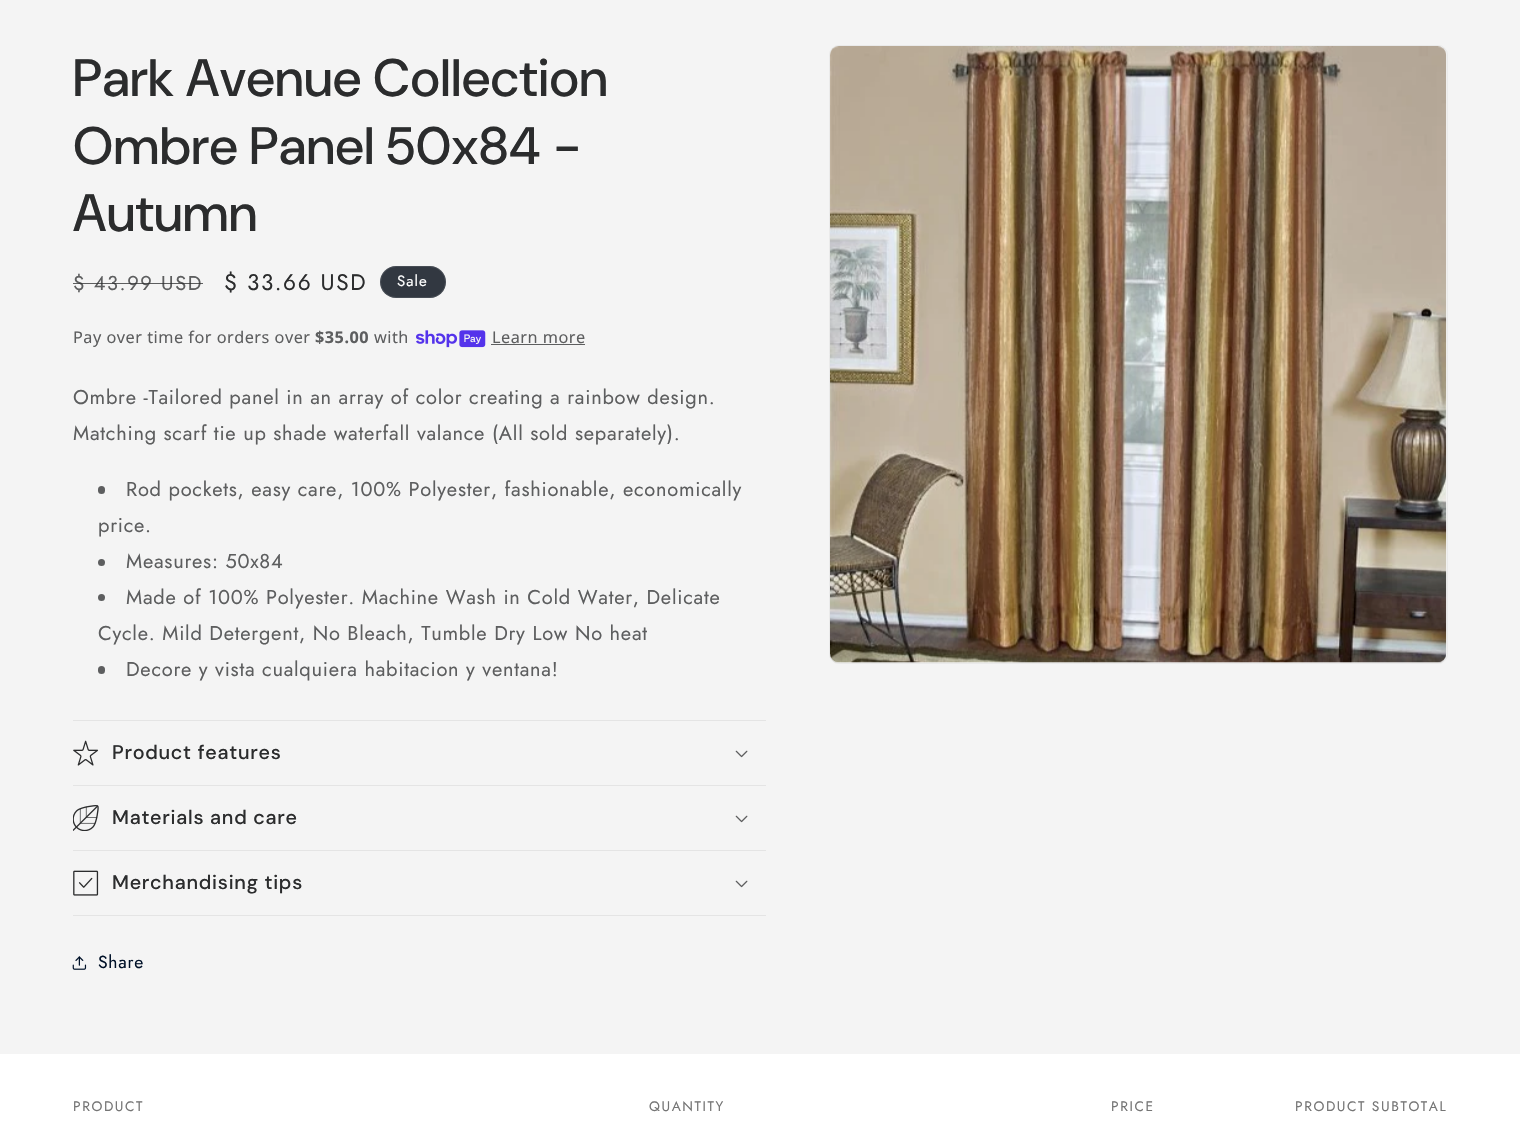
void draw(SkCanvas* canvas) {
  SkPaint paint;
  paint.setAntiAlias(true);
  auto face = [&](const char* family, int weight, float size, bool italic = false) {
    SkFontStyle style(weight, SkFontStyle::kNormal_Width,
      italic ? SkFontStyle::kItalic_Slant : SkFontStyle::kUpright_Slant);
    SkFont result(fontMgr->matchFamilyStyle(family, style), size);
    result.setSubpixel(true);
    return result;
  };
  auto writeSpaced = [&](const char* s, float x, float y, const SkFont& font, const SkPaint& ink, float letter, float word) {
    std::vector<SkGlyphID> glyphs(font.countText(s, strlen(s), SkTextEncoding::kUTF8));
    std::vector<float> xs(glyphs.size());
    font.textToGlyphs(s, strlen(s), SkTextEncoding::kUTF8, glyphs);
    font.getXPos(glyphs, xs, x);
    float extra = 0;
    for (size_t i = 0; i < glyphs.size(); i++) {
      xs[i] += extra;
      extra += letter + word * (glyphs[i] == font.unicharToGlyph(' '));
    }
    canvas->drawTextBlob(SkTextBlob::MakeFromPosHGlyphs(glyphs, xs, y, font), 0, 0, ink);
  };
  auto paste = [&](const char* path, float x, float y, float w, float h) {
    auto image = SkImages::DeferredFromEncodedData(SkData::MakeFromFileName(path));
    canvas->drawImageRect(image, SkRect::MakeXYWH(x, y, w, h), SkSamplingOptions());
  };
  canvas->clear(0xfff4f4f4);
  paint.setColor(0xff323841);
  canvas->drawRoundRect(SkRect::MakeXYWH(380, 266, 66, 32), 16, 16, paint);
  paint.setStroke(true);
  paint.setStrokeWidth(1);
  paint.setColor(0x1affffff);
  canvas->drawRoundRect(SkRect::MakeXYWH(380.5f, 266.5f, 65, 31), 15.5f, 15.5f, paint);
  paste("img/1.png", 416, 330, 70, 18);
  paint.setStroke(false);
  paint.setColor(0xff5d5e5f);
  canvas->drawRect(SkRect::MakeXYWH(491, 344, 94, 1), paint);
  canvas->drawRoundRect(SkRect::MakeXYWH(98, 486, 7, 8), 3.5f, 3.5f, paint);
  canvas->drawCircle(101.5f, 562.5f, 3.5f, paint);
  canvas->drawCircle(101.5f, 597.5f, 3.5f, paint);
  canvas->drawRoundRect(SkRect::MakeXYWH(98, 666, 7, 8), 3.5f, 3.5f, paint);
  paint.setColor(0xffe4e4e4);
  canvas->drawRect(SkRect::MakeXYWH(73, 720, 693, 1), paint);
  canvas->drawRect(SkRect::MakeXYWH(73, 785, 693, 1), paint);
  paste("img/2.png", 73, 740, 26, 26);
  paste("img/3.png", 735, 750, 13, 8);
  canvas->drawRect(SkRect::MakeXYWH(73, 850, 693, 1), paint);
  paste("img/4.png", 73, 805, 26, 26);
  paste("img/3.png", 735, 815, 13, 8);
  canvas->drawRect(SkRect::MakeXYWH(73, 915, 693, 1), paint);
  paste("img/5.png", 73, 870, 26, 26);
  paste("img/3.png", 735, 880, 13, 8);
  paste("img/6.png", 72, 956, 15, 14);
  paint.setStroke(true);
  paint.setColor(0xffeaeaea);
  canvas->drawRoundRect(SkRect::MakeXYWH(829.5f, 45.5f, 618, 618), 9.5f, 9.5f, paint);
  paste("img/7.png", 830, 46, 617, 617);
  paint.setStroke(false);
  paint.setColor(0xffffffff);
  canvas->drawRect(SkRect::MakeXYWH(0, 1054, 1520, 82), paint);
  auto f0 = face("DM Sans", 500, 52.5f);
  paint.setColor(0xff2b2c2d);
  {
    const struct { const char* s; float x, y; } items[] = {
      {"Park Avenue Collection", 73, 96},
      {"Ombre Panel 50x84 -", 73, 164},
      {"Autumn", 73, 231},
    };
    for (auto [s, x, y] : items) {
      writeSpaced(s, x, y, f0, paint, 0.75f, 0);
    }
  }
  auto f1 = face("Jost", 400, 20);
  paint.setColor(0xff5d5e5f);
  writeSpaced("$ 43.99 USD", 73, 290, f1, paint, 1.6f, 0);
  paint.setColor(0xbf2b2c2d);
  canvas->drawRect(SkRect::MakeXYWH(73, 283, 130, 1), paint);
  auto f2 = face("Jost", 400, 22.5f);
  paint.setColor(0xff2b2c2d);
  writeSpaced("$ 33.66 USD", 224, 290, f2, paint, 1.6f, 0);
  auto f3 = face("Jost", 400, 15);
  paint.setColor(0xffffffff);
  writeSpaced("Sale", 397, 286, f3, paint, 1, 0);
  auto f4 = face("Noto Sans", 400, 16.25f);
  paint.setColor(0xff5d5e5f);
  writeSpaced("Pay over time for orders over", 73, 343, f4, paint, 0.5f, 0);
  auto f5 = face("Noto Sans", 700, 16.25f);
  writeSpaced("$35.00", 315, 343, f5, paint, 0.5f, 0);
  writeSpaced("with", 374, 343, f4, paint, 0.5f, 0);
  writeSpaced("Learn more", 492, 343, f4, paint, 0.5f, 0);
  {
    const struct { const char* s; float x, y; } items[] = {
      {"Ombre -Tailored panel in an array of color creating a rainbow design.", 73, 404},
      {"Matching scarf tie up shade waterfall valance (All sold separately).", 73, 440},
      {"Rod pockets, easy care, 100% Polyester, fashionable, economically", 126, 496},
      {"price.", 98, 532},
      {"Measures: 50x84", 126, 568},
      {"Made of 100% Polyester. Machine Wash in Cold Water, Delicate", 126, 604},
      {"Cycle. Mild Detergent, No Bleach, Tumble Dry Low No heat", 98, 640},
      {"Decore y vista cualquiera habitacion y ventana!", 126, 676},
    };
    for (auto [s, x, y] : items) {
      writeSpaced(s, x, y, f1, paint, 0.75f, 0);
    }
  }
  auto f6 = face("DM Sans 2", 500, 19.75f);
  paint.setColor(0xff2b2c2d);
  {
    const struct { const char* s; float x, y; } items[] = {
      {"Product features", 112, 759},
      {"Materials and care", 112, 824},
      {"Merchandising tips", 112, 889},
    };
    for (auto [s, x, y] : items) {
      writeSpaced(s, x, y, f6, paint, 0.75f, 0);
    }
  }
  auto f7 = face("Jost", 400, 17.5f);
  paint.setColor(0xff001128);
  writeSpaced("Share", 98, 968, f7, paint, 0.75f, 0);
  auto f8 = face("Jost", 400, 13.75f);
  paint.setColor(0xff757575);
  {
    const struct { const char* s; float x, y; } items[] = {
      {"PRODUCT", 73, 1111},
      {"QUANTITY", 649, 1111},
      {"PRICE", 1111, 1111},
      {"PRODUCT SUBTOTAL", 1295, 1111},
    };
    for (auto [s, x, y] : items) {
      writeSpaced(s, x, y, f8, paint, 1.6f, 0);
    }
  }
}
